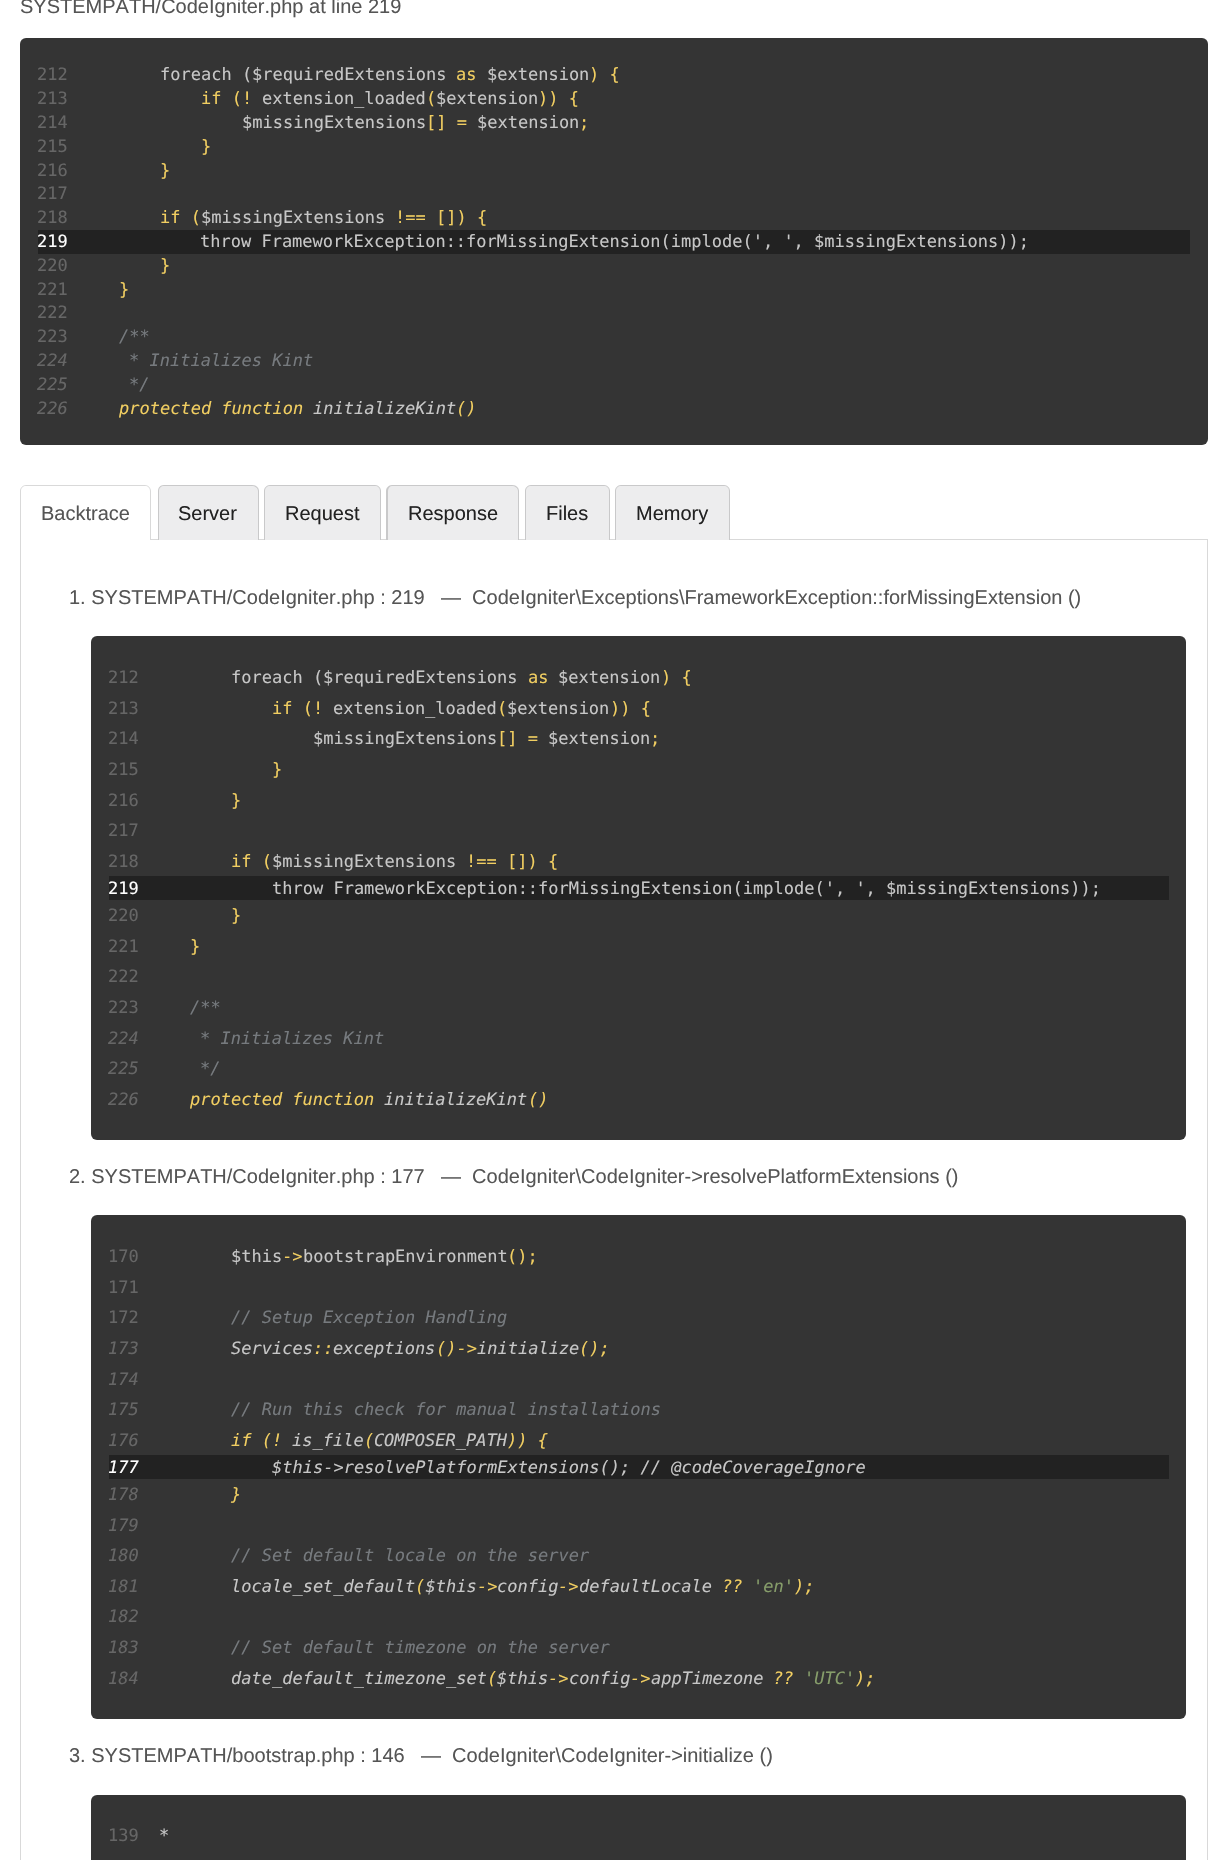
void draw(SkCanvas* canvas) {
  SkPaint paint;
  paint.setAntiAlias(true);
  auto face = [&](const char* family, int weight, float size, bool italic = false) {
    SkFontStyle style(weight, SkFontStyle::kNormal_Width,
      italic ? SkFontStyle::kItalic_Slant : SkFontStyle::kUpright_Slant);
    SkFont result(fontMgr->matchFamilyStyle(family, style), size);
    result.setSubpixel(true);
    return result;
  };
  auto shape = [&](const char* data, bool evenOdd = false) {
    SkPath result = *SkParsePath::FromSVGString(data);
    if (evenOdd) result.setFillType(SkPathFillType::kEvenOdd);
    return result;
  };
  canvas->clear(0xffffffff);
  paint.setColor(0xff343434);
  canvas->drawRoundRect(SkRect::MakeXYWH(20, 38, 1188, 407), 6, 6, paint);
  paint.setColor(0xff222222);
  canvas->drawRect(SkRect::MakeXYWH(38, 230, 1152, 24), paint);
  paint.setStroke(true);
  paint.setStrokeWidth(1);
  paint.setColor(0xffd9d9d9);
  canvas->drawRect(SkRect::MakeXYWH(20.5f, 539.5f, 1187, 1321), paint);
  paint.setStroke(false);
  paint.setColor(0xffffffff);
  canvas->drawPath(shape("M26 485H145C148.5 485 151 487.5 151 491V540H20V491C20 487.5 22.5 485 26 485Z"), paint);
  paint.setColor(0xffd9d9d9);
  canvas->drawPath(shape("M26 485H145C148 485 151 488 151 491V540H20V491C20 488 23 485 26 485ZM26 486H145C148 486 150 488 150 491V540H21V491C21 488 23 486 26 486Z", true), paint);
  paint.setColor(0xffededee);
  canvas->drawPath(shape("M164 485H253C256.5 485 259 487.5 259 491V540H158V491C158 487.5 160.5 485 164 485Z"), paint);
  paint.setColor(0x26000000);
  canvas->drawPath(shape("M164 485H252C256 485 259 488 259 491V540H158V491C158 488 160 485 164 485ZM164 486H252C255 486 258 488 258 491V540H159V491C159 488 161 486 164 486Z", true), paint);
  paint.setColor(0xffededee);
  canvas->drawPath(shape("M270 485H375C378.5 485 381 487.5 381 491V540H264V491C264 487.5 266.5 485 270 485Z"), paint);
  paint.setColor(0x26000000);
  canvas->drawPath(shape("M270 485H375C378 485 381 488 381 491V540H264V491C264 488 267 485 270 485ZM270 486H375C378 486 380 488 380 491V540H265V491C265 488 267 486 270 486Z", true), paint);
  paint.setColor(0xffededee);
  canvas->drawPath(shape("M392 485H513C516.5 485 519 487.5 519 491V540H386V491C386 487.5 388.5 485 392 485Z"), paint);
  paint.setColor(0x26000000);
  canvas->drawPath(shape("M392 485H512C516 485 519 488 519 491V540H386V491C386 488 389 485 392 485ZM392 486H512C515 486 518 488 518 491V540H388V491C388 488 390 486 392 486Z", true), paint);
  paint.setColor(0xffededee);
  canvas->drawPath(shape("M531 485H604C607.5 485 610 487.5 610 491V540H525V491C525 487.5 527.5 485 531 485Z"), paint);
  paint.setColor(0x26000000);
  canvas->drawPath(shape("M531 485H604C607 485 610 488 610 491V540H525V491C525 488 528 485 531 485ZM531 486H604C607 486 609 488 609 491V540H526V491C526 488 528 486 531 486Z", true), paint);
  paint.setColor(0xffededee);
  canvas->drawPath(shape("M621 485H724C727.5 485 730 487.5 730 491V540H615V491C615 487.5 617.5 485 621 485Z"), paint);
  paint.setColor(0x26000000);
  canvas->drawPath(shape("M621 485H724C727 485 730 488 730 491V540H615V491C615 488 618 485 621 485ZM621 486H724C727 486 729 488 729 491V540H616V491C616 488 618 486 621 486Z", true), paint);
  paint.setColor(0xff343434);
  canvas->drawRoundRect(SkRect::MakeXYWH(91, 636, 1095, 504), 6, 6, paint);
  paint.setColor(0xff222222);
  canvas->drawRect(SkRect::MakeXYWH(109, 876, 1060, 24), paint);
  paint.setColor(0xff343434);
  canvas->drawRoundRect(SkRect::MakeXYWH(91, 1215, 1095, 504), 6, 6, paint);
  paint.setColor(0xff222222);
  canvas->drawRect(SkRect::MakeXYWH(109, 1455, 1060, 24), paint);
  paint.setColor(0xff343434);
  canvas->drawRoundRect(SkRect::MakeXYWH(91, 1795, 1095, 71), 6, 6, paint);
  auto f0 = face("Liberation Sans", 400, 20);
  paint.setColor(0xff555555);
  canvas->drawString("SYSTEMPATH/CodeIgniter.php at line 219", 20, 13, f0, paint);
  auto f1 = face("DejaVu Sans Mono", 400, 17);
  paint.setColor(0xfff1ce61);
  canvas->drawString(") {", 589, 80, f1, paint);
  canvas->drawString(")) {", 538, 104, f1, paint);
  paint.setColor(0xff666666);
  canvas->drawString("214", 37, 128, f1, paint);
  paint.setColor(0xffc7c7c7);
  canvas->drawString("$missingExtensions", 242, 128, f1, paint);
  paint.setColor(0xfff1ce61);
  canvas->drawString("[] =", 426, 128, f1, paint);
  paint.setColor(0xffc7c7c7);
  canvas->drawString("$extension", 477, 128, f1, paint);
  paint.setColor(0xfff1ce61);
  canvas->drawString(";", 579, 128, f1, paint);
  paint.setColor(0xff666666);
  canvas->drawString("215", 37, 152, f1, paint);
  paint.setColor(0xfff1ce61);
  canvas->drawString("}", 201, 152, f1, paint);
  paint.setColor(0xff666666);
  canvas->drawString("216", 37, 176, f1, paint);
  paint.setColor(0xfff1ce61);
  canvas->drawString("}", 160, 176, f1, paint);
  paint.setColor(0xff666666);
  canvas->drawString("217", 37, 199, f1, paint);
  paint.setColor(0xfff1ce61);
  canvas->drawString("!== []) {", 395, 223, f1, paint);
  paint.setColor(0xffffffff);
  canvas->drawString("219", 37, 247, f1, paint);
  paint.setColor(0xffc7c7c7);
  canvas->drawString("throw FrameworkException::forMissingExtension(implode(', ', $missingExtensions));", 200, 247, f1, paint);
  paint.setColor(0xff666666);
  canvas->drawString("218", 37, 223, f1, paint);
  paint.setColor(0xfff1ce61);
  canvas->drawString("if (", 160, 223, f1, paint);
  paint.setColor(0xffc7c7c7);
  canvas->drawString("$missingExtensions", 201, 223, f1, paint);
  paint.setColor(0xff666666);
  canvas->drawString("220", 37, 271, f1, paint);
  paint.setColor(0xfff1ce61);
  canvas->drawString("}", 160, 271, f1, paint);
  paint.setColor(0xff666666);
  canvas->drawString("221", 37, 295, f1, paint);
  paint.setColor(0xfff1ce61);
  canvas->drawString("}", 119, 295, f1, paint);
  paint.setColor(0xff666666);
  canvas->drawString("222", 37, 318, f1, paint);
  canvas->drawString("223", 37, 342, f1, paint);
  auto f2 = face("DejaVu Sans Mono", 400, 17, true);
  paint.setColor(0xff767a7e);
  canvas->drawString("/**", 119, 342, f2, paint);
  paint.setColor(0xff666666);
  canvas->drawString("224", 37, 366, f2, paint);
  paint.setColor(0xff767a7e);
  canvas->drawString("* Initializes Kint", 129, 366, f2, paint);
  paint.setColor(0xff666666);
  canvas->drawString("225", 37, 390, f2, paint);
  paint.setColor(0xff767a7e);
  canvas->drawString("*/", 129, 390, f2, paint);
  paint.setColor(0xff666666);
  canvas->drawString("226", 37, 414, f2, paint);
  paint.setColor(0xfff1ce61);
  canvas->drawString("protected function", 119, 414, f2, paint);
  paint.setColor(0xffc7c7c7);
  canvas->drawString("initializeKint", 313, 414, f2, paint);
  paint.setColor(0xfff1ce61);
  canvas->drawString("()", 456, 414, f2, paint);
  paint.setColor(0xff666666);
  canvas->drawString("213", 37, 104, f1, paint);
  paint.setColor(0xfff1ce61);
  canvas->drawString("if (!", 201, 104, f1, paint);
  paint.setColor(0xffc7c7c7);
  canvas->drawString("extension_loaded $extension", 262, 104, f1, paint);
  paint.setColor(0xfff1ce61);
  canvas->drawString("(", 426, 104, f1, paint);
  paint.setColor(0xff666666);
  canvas->drawString("212", 37, 80, f1, paint);
  paint.setColor(0xffc7c7c7);
  canvas->drawString("foreach ($requiredExtensions", 160, 80, f1, paint);
  paint.setColor(0xfff1ce61);
  canvas->drawString("as", 456, 80, f1, paint);
  paint.setColor(0xffc7c7c7);
  canvas->drawString("$extension", 487, 80, f1, paint);
  paint.setColor(0xff555555);
  canvas->drawString("Backtrace", 41, 520, f0, paint);
  paint.setColor(0xff222222);
  {
    const struct { const char* s; float x, y; } items[] = {
      {"Server", 178, 520},
      {"Request", 285, 520},
      {"Response", 408, 520},
      {"Files", 546, 520},
      {"Memory", 636, 520},
    };
    for (auto [s, x, y] : items) {
      canvas->drawString(s, x, y, f0, paint);
    }
  }
  paint.setColor(0xff555555);
  canvas->drawString("1. SYSTEMPATH/CodeIgniter.php : 219", 69, 604, f0, paint);
  canvas->drawString("—  CodeIgniter\\Exceptions\\FrameworkException::forMissingExtension ()", 441, 604, f0, paint);
  paint.setColor(0xfff1ce61);
  canvas->drawString(") {", 661, 683, f1, paint);
  canvas->drawString(")) {", 610, 714, f1, paint);
  paint.setColor(0xff666666);
  canvas->drawString("214", 108, 744, f1, paint);
  paint.setColor(0xffc7c7c7);
  canvas->drawString("$missingExtensions", 313, 744, f1, paint);
  paint.setColor(0xfff1ce61);
  canvas->drawString("[] =", 497, 744, f1, paint);
  paint.setColor(0xffc7c7c7);
  canvas->drawString("$extension", 548, 744, f1, paint);
  paint.setColor(0xfff1ce61);
  canvas->drawString(";", 650, 744, f1, paint);
  paint.setColor(0xff666666);
  canvas->drawString("215", 108, 775, f1, paint);
  paint.setColor(0xfff1ce61);
  canvas->drawString("}", 272, 775, f1, paint);
  paint.setColor(0xff666666);
  canvas->drawString("216", 108, 806, f1, paint);
  paint.setColor(0xfff1ce61);
  canvas->drawString("}", 231, 806, f1, paint);
  paint.setColor(0xff666666);
  canvas->drawString("217", 108, 836, f1, paint);
  paint.setColor(0xfff1ce61);
  canvas->drawString("!== []) {", 466, 867, f1, paint);
  paint.setColor(0xffffffff);
  canvas->drawString("219", 108, 894, f1, paint);
  paint.setColor(0xffc7c7c7);
  canvas->drawString("throw FrameworkException::forMissingExtension(implode(', ', $missingExtensions));", 272, 894, f1, paint);
  paint.setColor(0xff666666);
  canvas->drawString("218", 108, 867, f1, paint);
  paint.setColor(0xfff1ce61);
  canvas->drawString("if (", 231, 867, f1, paint);
  paint.setColor(0xffc7c7c7);
  canvas->drawString("$missingExtensions", 272, 867, f1, paint);
  paint.setColor(0xff666666);
  canvas->drawString("220", 108, 921, f1, paint);
  paint.setColor(0xfff1ce61);
  canvas->drawString("}", 231, 921, f1, paint);
  paint.setColor(0xff666666);
  canvas->drawString("221", 108, 952, f1, paint);
  paint.setColor(0xfff1ce61);
  canvas->drawString("}", 190, 952, f1, paint);
  paint.setColor(0xff666666);
  canvas->drawString("222", 108, 982, f1, paint);
  canvas->drawString("223", 108, 1013, f1, paint);
  paint.setColor(0xff767a7e);
  canvas->drawString("/**", 190, 1013, f2, paint);
  paint.setColor(0xff666666);
  canvas->drawString("224", 108, 1044, f2, paint);
  paint.setColor(0xff767a7e);
  canvas->drawString("* Initializes Kint", 200, 1044, f2, paint);
  paint.setColor(0xff666666);
  canvas->drawString("225", 108, 1074, f2, paint);
  paint.setColor(0xff767a7e);
  canvas->drawString("*/", 200, 1074, f2, paint);
  paint.setColor(0xff666666);
  canvas->drawString("226", 108, 1105, f2, paint);
  paint.setColor(0xfff1ce61);
  canvas->drawString("protected function", 190, 1105, f2, paint);
  paint.setColor(0xffc7c7c7);
  canvas->drawString("initializeKint", 384, 1105, f2, paint);
  paint.setColor(0xfff1ce61);
  canvas->drawString("()", 528, 1105, f2, paint);
  paint.setColor(0xff666666);
  canvas->drawString("213", 108, 714, f1, paint);
  paint.setColor(0xfff1ce61);
  canvas->drawString("if (!", 272, 714, f1, paint);
  paint.setColor(0xffc7c7c7);
  canvas->drawString("extension_loaded $extension", 333, 714, f1, paint);
  paint.setColor(0xfff1ce61);
  canvas->drawString("(", 497, 714, f1, paint);
  paint.setColor(0xff666666);
  canvas->drawString("212", 108, 683, f1, paint);
  paint.setColor(0xffc7c7c7);
  canvas->drawString("foreach ($requiredExtensions", 231, 683, f1, paint);
  paint.setColor(0xfff1ce61);
  canvas->drawString("as", 528, 683, f1, paint);
  paint.setColor(0xffc7c7c7);
  canvas->drawString("$extension", 558, 683, f1, paint);
  paint.setColor(0xff555555);
  canvas->drawString("2. SYSTEMPATH/CodeIgniter.php : 177", 69, 1183, f0, paint);
  canvas->drawString("—  CodeIgniter\\CodeIgniter->resolvePlatformExtensions ()", 441, 1183, f0, paint);
  paint.setColor(0xfff1ce61);
  canvas->drawString("();", 507, 1262, f1, paint);
  paint.setColor(0xff666666);
  canvas->drawString("171", 108, 1293, f1, paint);
  paint.setColor(0xff767a7e);
  canvas->drawString("// Setup Exception Handling", 231, 1323, f2, paint);
  paint.setColor(0xfff1ce61);
  canvas->drawString("();", 579, 1354, f2, paint);
  paint.setColor(0xff666666);
  canvas->drawString("174", 108, 1385, f2, paint);
  paint.setColor(0xff767a7e);
  canvas->drawString("// Run this check for manual installations", 231, 1415, f2, paint);
  paint.setColor(0xfff1ce61);
  canvas->drawString(")) {", 507, 1446, f2, paint);
  paint.setColor(0xffffffff);
  canvas->drawString("177", 108, 1473, f2, paint);
  paint.setColor(0xffc7c7c7);
  canvas->drawString("$this->resolvePlatformExtensions(); // @codeCoverageIgnore", 272, 1473, f2, paint);
  paint.setColor(0xff666666);
  canvas->drawString("176", 108, 1446, f2, paint);
  paint.setColor(0xfff1ce61);
  canvas->drawString("if (!", 231, 1446, f2, paint);
  paint.setColor(0xffc7c7c7);
  canvas->drawString("is_file COMPOSER_PATH", 292, 1446, f2, paint);
  paint.setColor(0xfff1ce61);
  canvas->drawString("(", 364, 1446, f2, paint);
  paint.setColor(0xff666666);
  canvas->drawString("178", 108, 1500, f2, paint);
  paint.setColor(0xfff1ce61);
  canvas->drawString("}", 231, 1500, f2, paint);
  paint.setColor(0xff666666);
  canvas->drawString("179", 108, 1531, f2, paint);
  canvas->drawString("180", 108, 1561, f2, paint);
  paint.setColor(0xff767a7e);
  canvas->drawString("// Set default locale on the server", 231, 1561, f2, paint);
  paint.setColor(0xff666666);
  canvas->drawString("181", 108, 1592, f2, paint);
  paint.setColor(0xffc7c7c7);
  canvas->drawString("locale_set_default $this", 231, 1592, f2, paint);
  paint.setColor(0xfff1ce61);
  canvas->drawString("(", 415, 1592, f2, paint);
  canvas->drawString("->", 477, 1592, f2, paint);
  paint.setColor(0xffc7c7c7);
  canvas->drawString("config", 497, 1592, f2, paint);
  paint.setColor(0xfff1ce61);
  canvas->drawString("->", 558, 1592, f2, paint);
  paint.setColor(0xffc7c7c7);
  canvas->drawString("defaultLocale", 579, 1592, f2, paint);
  paint.setColor(0xfff1ce61);
  canvas->drawString("?\077", 722, 1592, f2, paint);
  paint.setColor(0xff869d6a);
  canvas->drawString("'en'", 753, 1592, f2, paint);
  paint.setColor(0xfff1ce61);
  canvas->drawString(");", 794, 1592, f2, paint);
  paint.setColor(0xff666666);
  canvas->drawString("182", 108, 1622, f2, paint);
  canvas->drawString("183", 108, 1653, f2, paint);
  paint.setColor(0xff767a7e);
  canvas->drawString("// Set default timezone on the server", 231, 1653, f2, paint);
  paint.setColor(0xff666666);
  canvas->drawString("184", 108, 1684, f2, paint);
  paint.setColor(0xffc7c7c7);
  canvas->drawString("date_default_timezone_set $this", 231, 1684, f2, paint);
  paint.setColor(0xfff1ce61);
  canvas->drawString("(", 487, 1684, f2, paint);
  canvas->drawString("->", 548, 1684, f2, paint);
  paint.setColor(0xffc7c7c7);
  canvas->drawString("config", 569, 1684, f2, paint);
  paint.setColor(0xfff1ce61);
  canvas->drawString("->", 630, 1684, f2, paint);
  paint.setColor(0xffc7c7c7);
  canvas->drawString("appTimezone", 651, 1684, f2, paint);
  paint.setColor(0xfff1ce61);
  canvas->drawString("?\077", 773, 1684, f2, paint);
  paint.setColor(0xff869d6a);
  canvas->drawString("'UTC'", 804, 1684, f2, paint);
  paint.setColor(0xfff1ce61);
  canvas->drawString(");", 855, 1684, f2, paint);
  paint.setColor(0xff666666);
  canvas->drawString("175", 108, 1415, f2, paint);
  canvas->drawString("173", 108, 1354, f2, paint);
  paint.setColor(0xffc7c7c7);
  canvas->drawString("Services", 231, 1354, f2, paint);
  paint.setColor(0xfff1ce61);
  canvas->drawString("::", 313, 1354, f2, paint);
  paint.setColor(0xffc7c7c7);
  canvas->drawString("exceptions", 333, 1354, f2, paint);
  paint.setColor(0xfff1ce61);
  canvas->drawString("()->", 436, 1354, f2, paint);
  paint.setColor(0xffc7c7c7);
  canvas->drawString("initialize", 477, 1354, f2, paint);
  paint.setColor(0xff666666);
  canvas->drawString("172", 108, 1323, f1, paint);
  canvas->drawString("170", 108, 1262, f1, paint);
  paint.setColor(0xffc7c7c7);
  canvas->drawString("$this", 231, 1262, f1, paint);
  paint.setColor(0xfff1ce61);
  canvas->drawString("->", 282, 1262, f1, paint);
  paint.setColor(0xffc7c7c7);
  canvas->drawString("bootstrapEnvironment", 303, 1262, f1, paint);
  paint.setColor(0xff555555);
  canvas->drawString("3. SYSTEMPATH/bootstrap.php : 146", 69, 1762, f0, paint);
  canvas->drawString("—  CodeIgniter\\CodeIgniter->initialize ()", 421, 1762, f0, paint);
  paint.setColor(0xff666666);
  canvas->drawString("139", 108, 1841, f1, paint);
  paint.setColor(0xffc7c7c7);
  canvas->drawString("*", 159, 1841, f1, paint);
}
